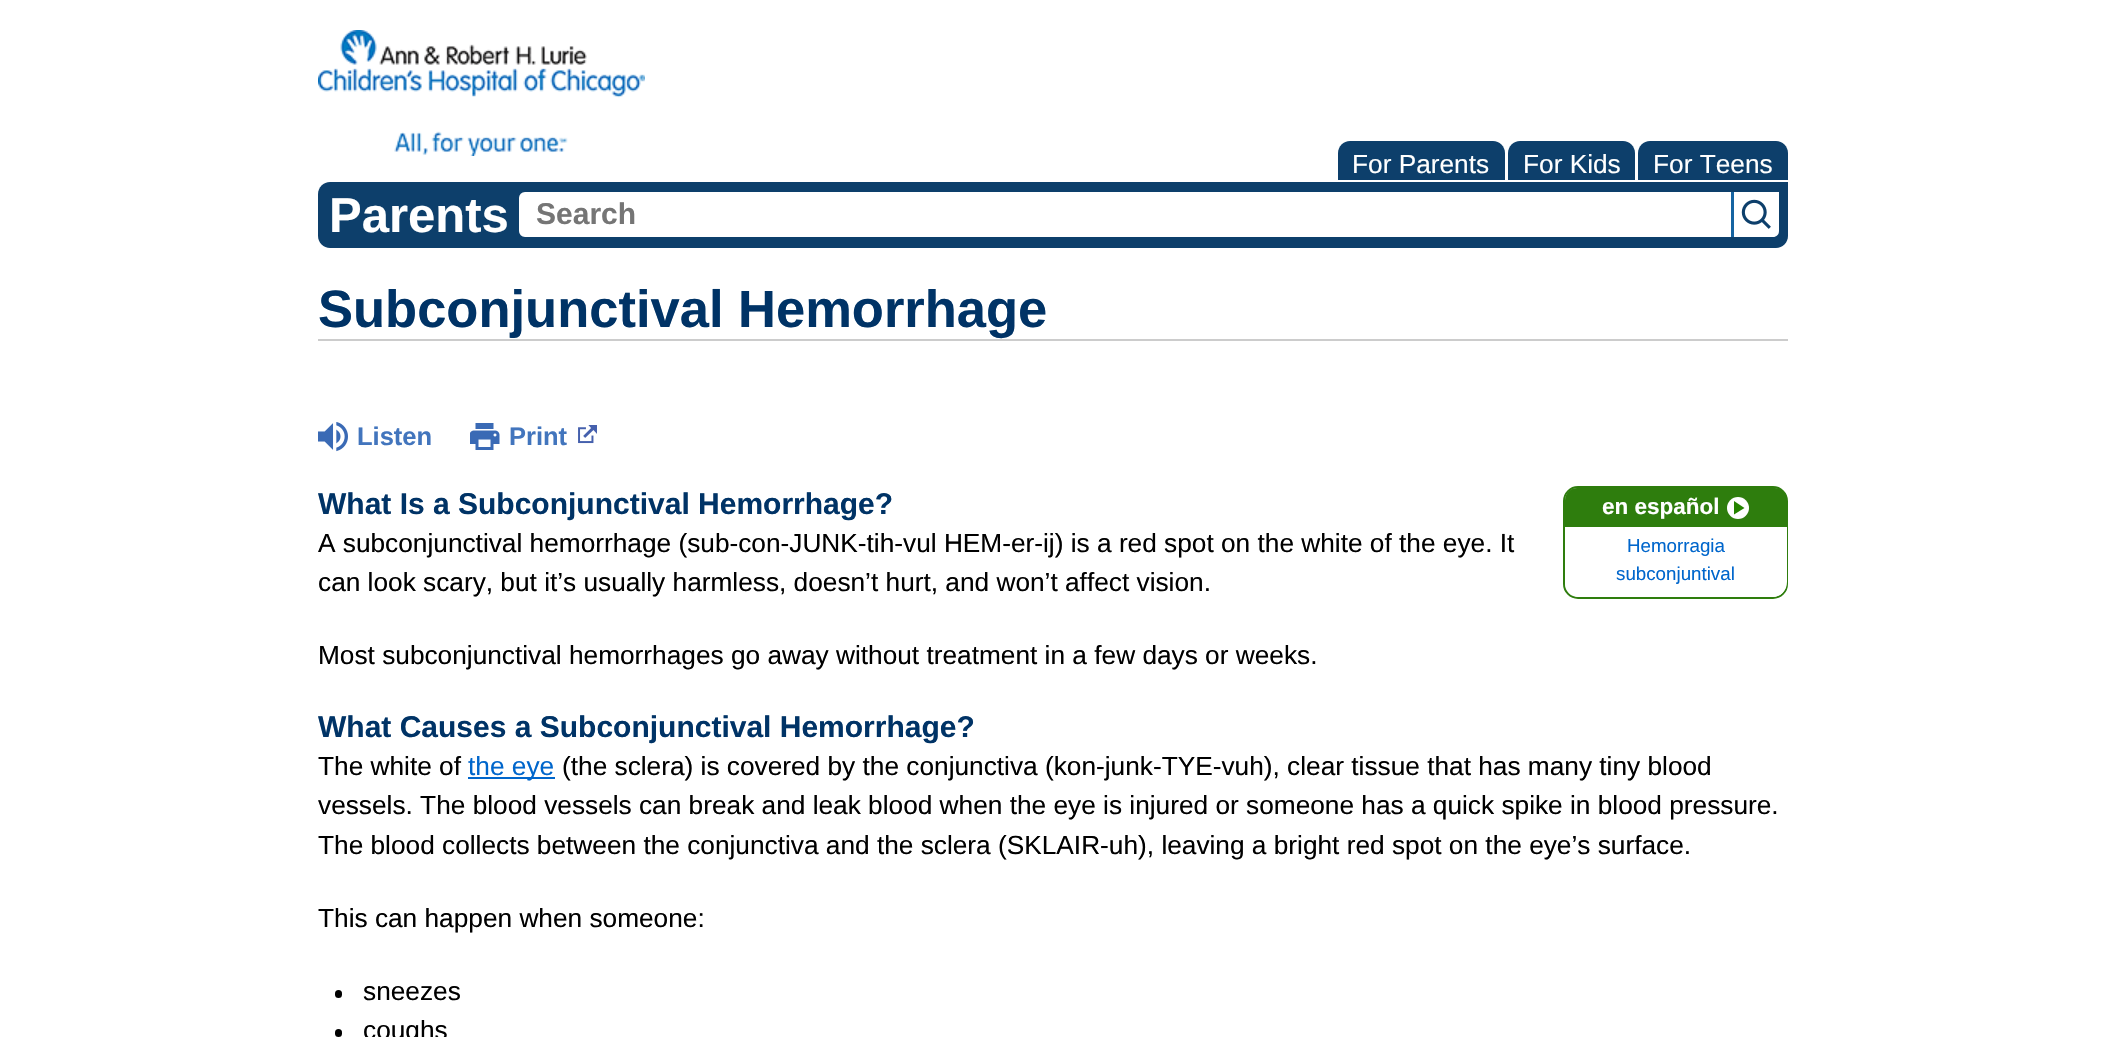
void draw(SkCanvas* canvas) {
  SkPaint paint;
  paint.setAntiAlias(true);
  auto face = [&](const char* family, int weight, float size, bool italic = false) {
    SkFontStyle style(weight, SkFontStyle::kNormal_Width,
      italic ? SkFontStyle::kItalic_Slant : SkFontStyle::kUpright_Slant);
    SkFont result(fontMgr->matchFamilyStyle(family, style), size);
    result.setSubpixel(true);
    return result;
  };
  auto paste = [&](const char* path, float x, float y, float w, float h) {
    auto image = SkImages::DeferredFromEncodedData(SkData::MakeFromFileName(path));
    canvas->drawImageRect(image, SkRect::MakeXYWH(x, y, w, h), SkSamplingOptions());
  };
  auto shape = [&](const char* data, bool evenOdd = false) {
    SkPath result = *SkParsePath::FromSVGString(data);
    if (evenOdd) result.setFillType(SkPathFillType::kEvenOdd);
    return result;
  };
  canvas->clear(0xffffffff);
  paste("img/1.png", 318, 30, 327, 126);
  paint.setColor(0xff0d3f6b);
  canvas->drawPath(shape("M1350 141H1493C1499.5 141 1505 146.5 1505 153V180H1338V153C1338 146.5 1343.5 141 1350 141Z"), paint);
  canvas->drawPath(shape("M1520 141H1623C1629.5 141 1635 146.5 1635 153V180H1508V153C1508 146.5 1513.5 141 1520 141Z"), paint);
  canvas->drawPath(shape("M1650 141H1776C1782.5 141 1788 146.5 1788 153V180H1638V153C1638 146.5 1643.5 141 1650 141Z"), paint);
  canvas->drawPath(shape("M330 182H1788V236C1788 242.5 1782.5 248 1776 248H330C323.5 248 318 242.5 318 236V194C318 187.5 323.5 182 330 182Z"), paint);
  paint.setColor(0xffffffff);
  canvas->drawPath(shape("M525 196.5H1726.5V232.5H525C524 232.5 523.5 232 523.5 231V198C523.5 197 524 196.5 525 196.5Z"), paint);
  paint.setStroke(true);
  paint.setStrokeWidth(9);
  canvas->drawPath(shape("M525 196.5H1726.5V232.5H525C524 232.5 523.5 232 523.5 231V198C523.5 197 524 196.5 525 196.5Z"), paint);
  paint.setStroke(false);
  paint.setColor(0xff1564a2);
  canvas->drawRect(SkRect::MakeXYWH(1731, 192, 3, 45), paint);
  paint.setColor(0xffffffff);
  canvas->drawPath(shape("M1734 192H1779V231C1779 234.5 1776.5 237 1773 237H1734Z"), paint);
  paste("img/2.png", 1741, 199, 30, 30);
  paint.setColor(0xffcccccc);
  canvas->drawRect(SkRect::MakeXYWH(318, 339, 1470, 2), paint);
  paste("img/3.png", 318, 422, 30, 30);
  paste("img/4.png", 470, 423, 30, 27);
  paste("img/5.png", 578, 425, 19, 19);
  paint.setColor(0xff0066cc);
  canvas->drawRect(SkRect::MakeXYWH(468, 777, 87, 2), paint);
  paint.setColor(0xff000000);
  canvas->drawRoundRect(SkRect::MakeXYWH(335, 990, 7, 8), 3.5f, 3.5f, paint);
  canvas->drawRoundRect(SkRect::MakeXYWH(335, 1029, 7, 8), 3.5f, 3.5f, paint);
  paint.setStroke(true);
  paint.setStrokeWidth(2);
  paint.setColor(0xff2e7d0d);
  canvas->drawRoundRect(SkRect::MakeXYWH(1564, 487, 223, 111), 14, 14, paint);
  paint.setStroke(false);
  canvas->drawPath(shape("M1577 488H1775C1781.5 488 1787 493.5 1787 500V527H1565V500C1565 493.5 1570.5 488 1577 488Z"), paint);
  paint.setColor(0xffffffff);
  canvas->drawCircle(1738, 508, 11, paint);
  paint.setColor(0xff258300);
  canvas->drawPath(shape("M1734 501V514.5L1744.5 508Z", true), paint);
  paint.setColor(0xffffffff);
  canvas->drawPath(shape("M1565 527H1787V582C1787 590.5 1780.5 597 1772 597H1580C1571.5 597 1565 590.5 1565 582Z"), paint);
  auto f0 = face("Liberation Sans", 400, 26.25f);
  {
    const struct { const char* s; float x, y; } items[] = {
      {"For Parents", 1352, 173},
      {"For Kids", 1523, 173},
      {"For Teens", 1653, 173},
    };
    for (auto [s, x, y] : items) {
      canvas->drawString(s, x, y, f0, paint);
    }
  }
  auto f1 = face("Liberation Sans", 700, 49);
  canvas->drawString("Parents", 329, 232, f1, paint);
  auto f2 = face("Liberation Sans", 700, 30);
  paint.setColor(0xff757575);
  canvas->drawString("Search", 536, 224, f2, paint);
  auto f3 = face("Liberation Sans", 700, 52.5f);
  paint.setColor(0xff003366);
  canvas->drawString("Subconjunctival Hemorrhage", 318, 327, f3, paint);
  auto f4 = face("Liberation Sans", 700, 25.5f);
  paint.setColor(0xff4275bd);
  canvas->drawString("Listen", 357, 445, f4, paint);
  canvas->drawString("Print", 509, 445, f4, paint);
  paint.setColor(0xff003366);
  canvas->drawString("What Is a Subconjunctival Hemorrhage?", 318, 514, f2, paint);
  paint.setColor(0xff000000);
  {
    const struct { const char* s; float x, y; } items[] = {
      {"A subconjunctival hemorrhage (sub-con-JUNK-tih-vul HEM-er-ij) is a red spot on the white of the eye. It", 318, 552},
      {"can look scary, but it’s usually harmless, doesn’t hurt, and won’t affect vision.", 318, 591},
      {"Most subconjunctival hemorrhages go away without treatment in a few days or weeks.", 318, 664},
    };
    for (auto [s, x, y] : items) {
      canvas->drawString(s, x, y, f0, paint);
    }
  }
  paint.setColor(0xff003366);
  canvas->drawString("What Causes a Subconjunctival Hemorrhage?", 318, 737, f2, paint);
  paint.setColor(0xff000000);
  canvas->drawString("The white of", 318, 775, f0, paint);
  paint.setColor(0xff0066cc);
  canvas->drawString("the eye", 468, 775, f0, paint);
  paint.setColor(0xff000000);
  {
    const struct { const char* s; float x, y; } items[] = {
      {"(the sclera) is covered by the conjunctiva (kon-junk-TYE-vuh), clear tissue that has many tiny blood", 562, 775},
      {"vessels. The blood vessels can break and leak blood when the eye is injured or someone has a quick spike in blood pressure.", 318, 814},
      {"The blood collects between the conjunctiva and the sclera (SKLAIR-uh), leaving a bright red spot on the eye’s surface.", 318, 854},
      {"This can happen when someone:", 318, 927},
      {"sneezes", 363, 1000},
      {"coughs", 363, 1039},
    };
    for (auto [s, x, y] : items) {
      canvas->drawString(s, x, y, f0, paint);
    }
  }
  auto f5 = face("Liberation Sans", 700, 22.5f);
  paint.setColor(0xffffffff);
  canvas->drawString("en español", 1602, 514, f5, paint);
  auto f6 = face("Liberation Sans", 400, 18.75f);
  paint.setColor(0xff0066cc);
  canvas->drawString("Hemorragia", 1627, 552, f6, paint);
  canvas->drawString("subconjuntival", 1616, 580, f6, paint);
}
